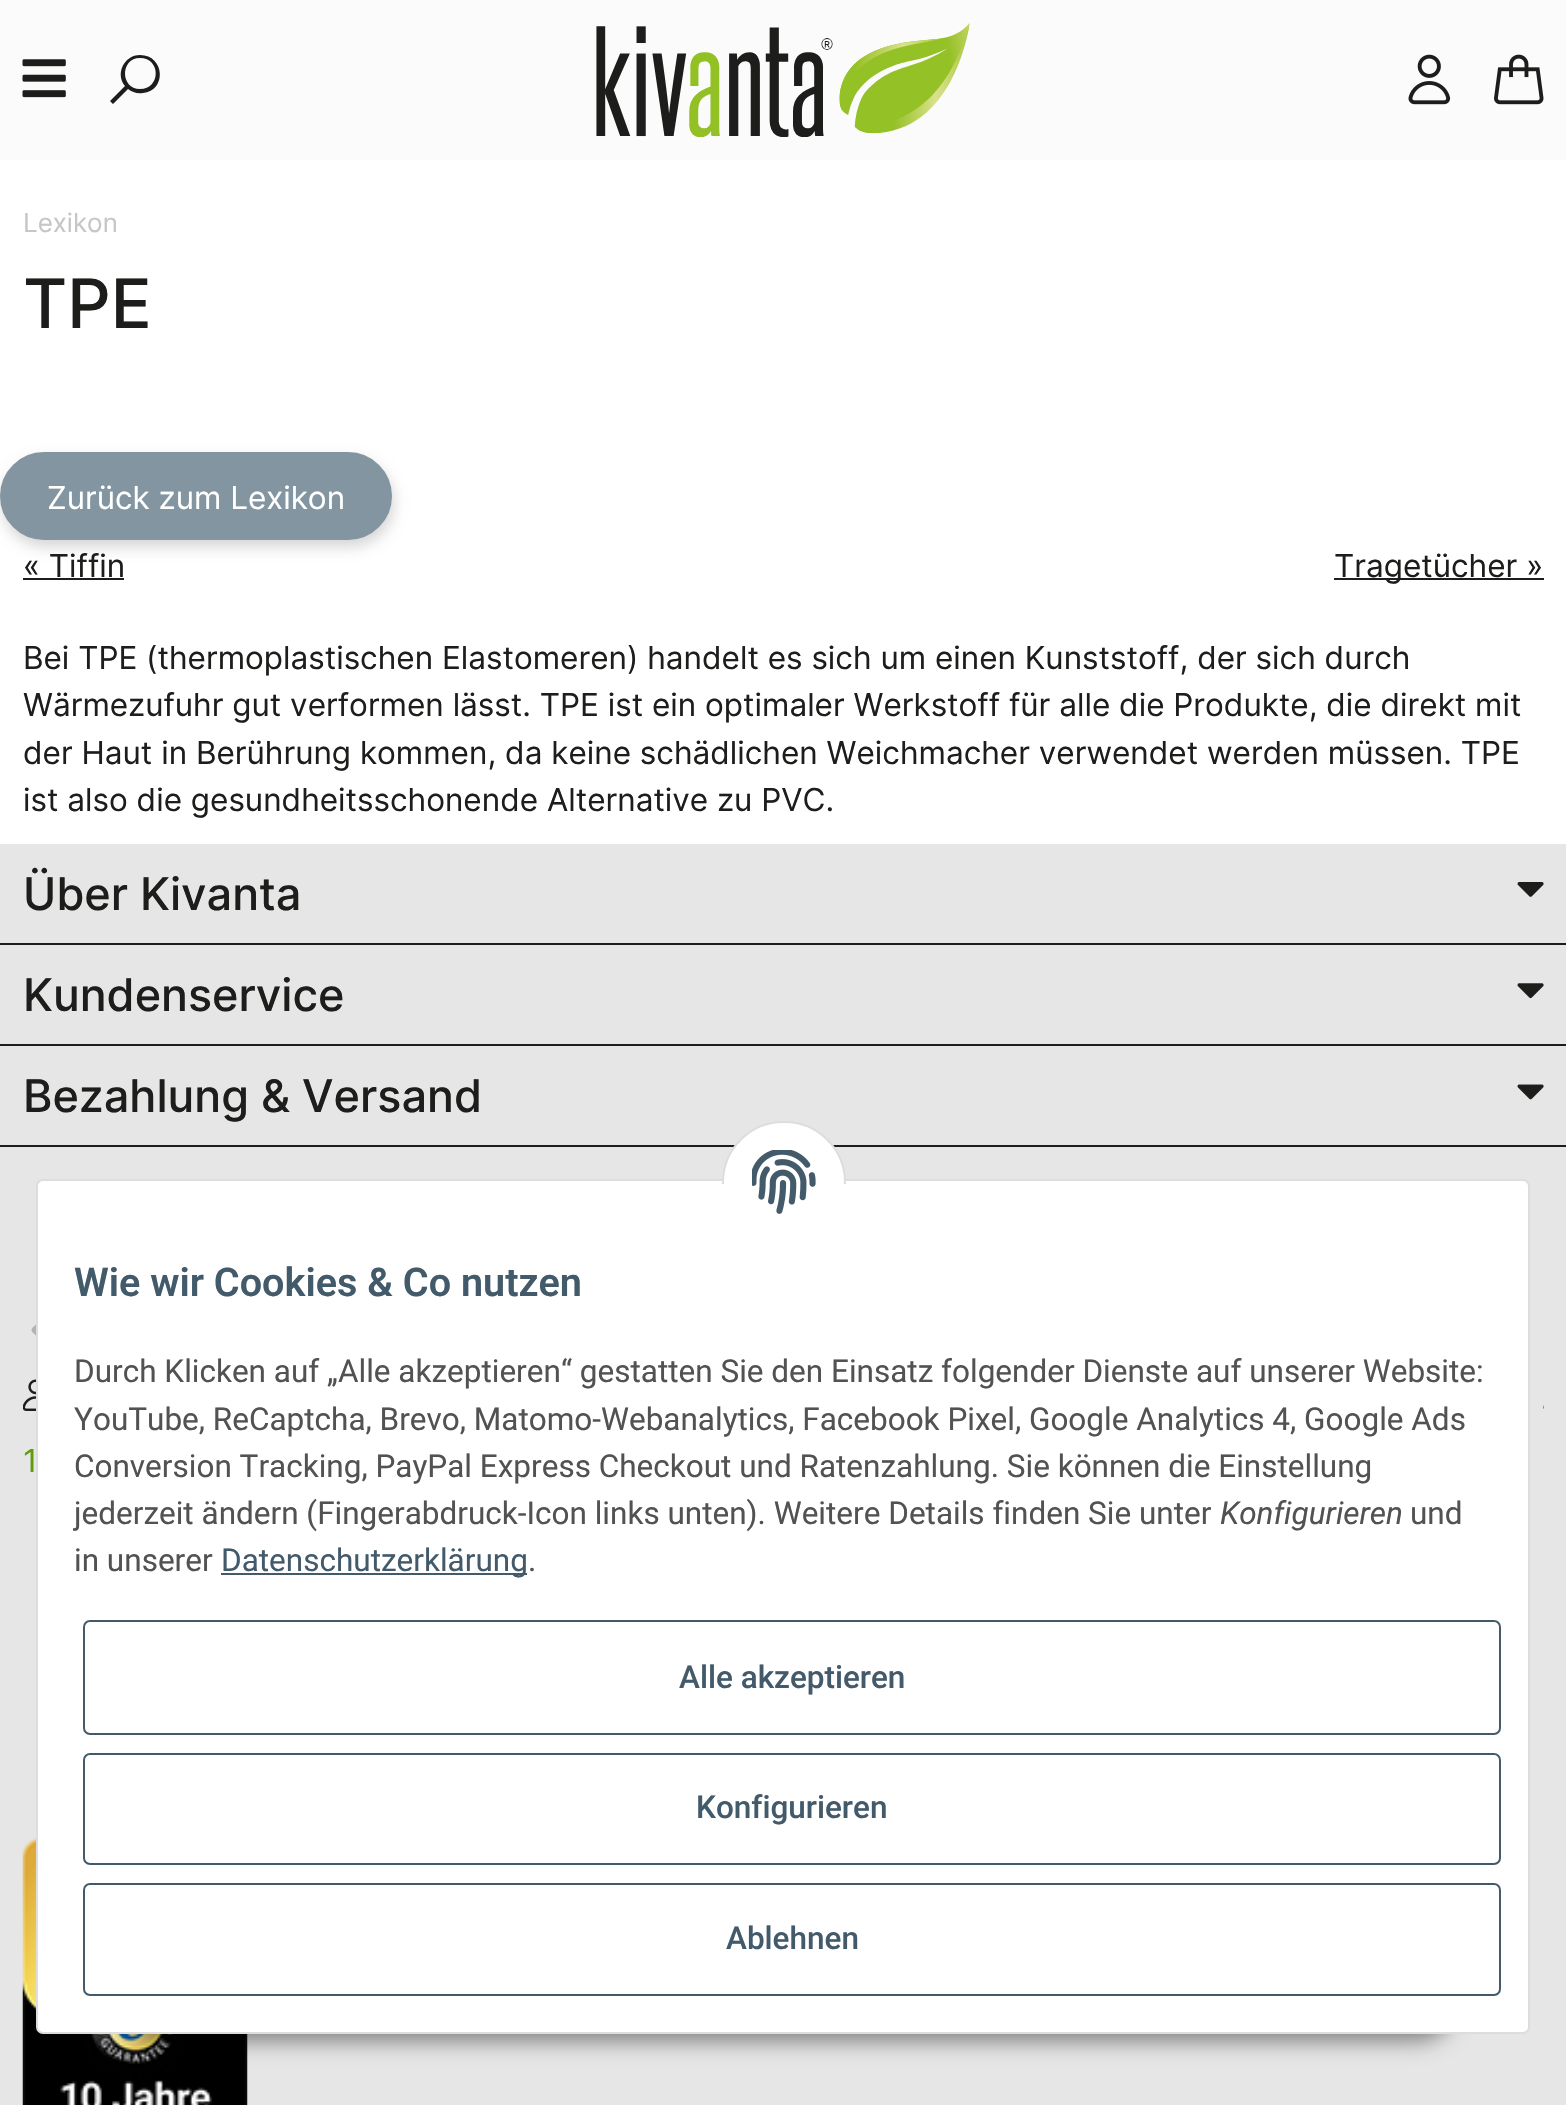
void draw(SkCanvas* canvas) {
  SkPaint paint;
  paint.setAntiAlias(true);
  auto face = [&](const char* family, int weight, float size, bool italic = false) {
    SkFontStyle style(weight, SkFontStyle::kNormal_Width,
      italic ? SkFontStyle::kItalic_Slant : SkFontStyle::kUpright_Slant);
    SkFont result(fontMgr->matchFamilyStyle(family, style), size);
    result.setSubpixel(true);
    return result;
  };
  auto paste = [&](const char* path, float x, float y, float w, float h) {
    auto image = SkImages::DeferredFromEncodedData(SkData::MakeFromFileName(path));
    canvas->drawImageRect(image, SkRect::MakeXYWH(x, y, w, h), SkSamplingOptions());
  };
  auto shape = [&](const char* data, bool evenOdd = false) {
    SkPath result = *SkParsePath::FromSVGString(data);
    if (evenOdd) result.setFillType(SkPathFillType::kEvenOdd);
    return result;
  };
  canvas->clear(0xffffffff);
  paint.setColor(0xfffbfbfb);
  canvas->drawRect(SkRect::MakeXYWH(0, 0, 1566, 160), paint);
  paste("img/1.png", 22, 59, 44, 39);
  paint.setColor(0xff1d1d1b);
  canvas->drawPath(shape("M140 55C124 55 115 74 125 86L110 101L113 104L128 89C132 92 137 94 143 93C167 91 165 55 140 55ZM140 89C120 89 120 58 140 58C161 58 161 89 140 89Z"), paint);
  paste("img/2.png", 596, 23, 374, 114);
  paste("img/3.png", 1408, 54, 43, 51);
  paste("img/4.png", 1494, 54, 50, 51);
  paint.setColor(0x29000000);
  paint.setMaskFilter(SkMaskFilter::MakeBlur(kNormal_SkBlurStyle, 7));
  canvas->drawRoundRect(SkRect::MakeXYWH(2, 459, 392, 88), 44, 44, paint);
  paint.setMaskFilter(nullptr);
  paint.setColor(0xff8395a0);
  canvas->drawRoundRect(SkRect::MakeXYWH(1, 453, 390, 86), 43, 43, paint);
  paint.setStroke(true);
  paint.setStrokeWidth(2);
  canvas->drawRoundRect(SkRect::MakeXYWH(1, 453, 390, 86), 43, 43, paint);
  paint.setStroke(false);
  {
    const struct { float x, y, w, h; SkColor color; } items[] = {
      {23, 578, 101, 2, 0xff1d1d1b},
      {1334, 578, 210, 2, 0xff1d1d1b},
      {0, 844, 1566, 1261, 0xffe6e6e6},
      {0, 943, 1566, 2, 0xff1d1d1b},
    };
    for (auto [x, y, w, h, color] : items) {
      paint.setColor(color);
      canvas->drawRect(SkRect::MakeXYWH(x, y, w, h), paint);
    }
  }
  paste("img/5.png", 1517, 882, 27, 15);
  canvas->drawRect(SkRect::MakeXYWH(0, 1044, 1566, 2), paint);
  paste("img/6.png", 1517, 983, 27, 16);
  canvas->drawRect(SkRect::MakeXYWH(0, 1145, 1566, 2), paint);
  paste("img/7.png", 1517, 1084, 27, 16);
  paste("img/8.png", 31, 1324, 5, 12);
  paste("img/9.png", 23, 1379, 13, 32);
  paste("img/10.png", 1543, 1405, 1, 4);
  paste("img/11.png", 22, 1838, 226, 267);
  paint.setColor(0x73000000);
  paint.setMaskFilter(SkMaskFilter::MakeBlur(kNormal_SkBlurStyle, 11));
  canvas->drawRoundRect(SkRect::MakeXYWH(113, 1969, 1341, 72), 36, 36, paint);
  paint.setMaskFilter(nullptr);
  paint.setColor(0xffffffff);
  canvas->drawRoundRect(SkRect::MakeXYWH(37, 1180, 1492, 853), 6, 6, paint);
  paint.setStroke(true);
  paint.setColor(0xffdddddd);
  canvas->drawRoundRect(SkRect::MakeXYWH(37, 1180, 1492, 853), 6, 6, paint);
  paint.setStroke(false);
  paint.setColor(0xffffffff);
  canvas->drawRoundRect(SkRect::MakeXYWH(723, 1122, 122, 121), 60.5f, 60.5f, paint);
  paint.setStroke(true);
  paint.setColor(0xffdddddd);
  canvas->drawRoundRect(SkRect::MakeXYWH(723, 1122, 122, 121), 60.5f, 60.5f, paint);
  paint.setStroke(false);
  paint.setColor(0xffffffff);
  canvas->drawRect(SkRect::MakeXYWH(722, 1184, 124, 60), paint);
  paste("img/12.png", 752, 1150, 64, 64);
  paint.setColor(0xff435a6b);
  canvas->drawRect(SkRect::MakeXYWH(221, 1573, 306, 2), paint);
  paint.setStroke(true);
  canvas->drawRoundRect(SkRect::MakeXYWH(84, 1621, 1416, 113), 6, 6, paint);
  canvas->drawRoundRect(SkRect::MakeXYWH(84, 1754, 1416, 110), 6, 6, paint);
  canvas->drawRoundRect(SkRect::MakeXYWH(84, 1884, 1416, 111), 6, 6, paint);
  auto f0 = face("Inter", 400, 26);
  paint.setStroke(false);
  paint.setColor(0xffc6c6c6);
  canvas->drawString("Lexikon", 23, 232, f0, paint);
  auto f1 = face("Inter", 500, 68);
  paint.setColor(0xff1d1d1b);
  canvas->drawString("TPE", 23, 328, f1, paint);
  auto f2 = face("Inter", 400, 31.5f);
  paint.setColor(0xffffffff);
  canvas->drawString("Zurück zum Lexikon", 47, 509, f2, paint);
  paint.setColor(0xff1d1d1b);
  {
    const struct { const char* s; float x, y; } items[] = {
      {"« Tiffin", 23, 577},
      {"Tragetücher »", 1334, 577},
      {"Bei TPE (thermoplastischen Elastomeren) handelt es sich um einen Kunststoff, der sich durch", 23, 669},
      {"Wärmezufuhr gut verformen lässt. TPE ist ein optimaler Werkstoff für alle die Produkte, die direkt mit", 23, 716},
      {"der Haut in Berührung kommen, da keine schädlichen Weichmacher verwendet werden müssen. TPE", 23, 764},
      {"ist also die gesundheitsschonende Alternative zu PVC.", 23, 811},
    };
    for (auto [s, x, y] : items) {
      canvas->drawString(s, x, y, f2, paint);
    }
  }
  auto f3 = face("Inter", 500, 45);
  {
    const struct { const char* s; float x, y; } items[] = {
      {"Über Kivanta", 23, 910},
      {"Kundenservice", 23, 1011},
      {"Bezahlung & Versand", 23, 1112},
    };
    for (auto [s, x, y] : items) {
      canvas->drawString(s, x, y, f3, paint);
    }
  }
  paint.setColor(0xff629c0d);
  canvas->drawString("1", 23, 1472, f2, paint);
  auto f4 = face("Roboto", 600, 39.6f);
  paint.setColor(0xff435a6b);
  canvas->drawString("Wie wir Cookies & Co nutzen", 74, 1296, f4, paint);
  auto f5 = face("Roboto", 400, 31.5f);
  paint.setColor(0xff525252);
  {
    const struct { const char* s; float x, y; } items[] = {
      {"Durch Klicken auf „Alle akzeptieren“ gestatten Sie den Einsatz folgender Dienste auf unserer Website:", 74, 1382},
      {"YouTube, ReCaptcha, Brevo, Matomo-Webanalytics, Facebook Pixel, Google Analytics 4, Google Ads", 74, 1430},
      {"Conversion Tracking, PayPal Express Checkout und Ratenzahlung. Sie können die Einstellung", 74, 1477},
      {"jederzeit ändern (Fingerabdruck-Icon links unten). Weitere Details finden Sie unter", 74, 1524},
    };
    for (auto [s, x, y] : items) {
      canvas->drawString(s, x, y, f5, paint);
    }
  }
  auto f6 = face("Roboto", 400, 31.5f, true);
  canvas->drawString("Konfigurieren", 1220, 1524, f6, paint);
  canvas->drawString("und", 1410, 1524, f5, paint);
  canvas->drawString("in unserer", 74, 1571, f5, paint);
  paint.setColor(0xff435a6b);
  canvas->drawString("Datenschutzerklärung", 221, 1571, f5, paint);
  paint.setColor(0xff525252);
  canvas->drawString(".", 528, 1571, f5, paint);
  auto f7 = face("Roboto", 500, 31.5f);
  paint.setColor(0xff435a6b);
  {
    const struct { const char* s; float x, y; } items[] = {
      {"Alle akzeptieren", 679, 1688},
      {"Konfigurieren", 696, 1818},
      {"Ablehnen", 726, 1949},
    };
    for (auto [s, x, y] : items) {
      canvas->drawString(s, x, y, f7, paint);
    }
  }
}
